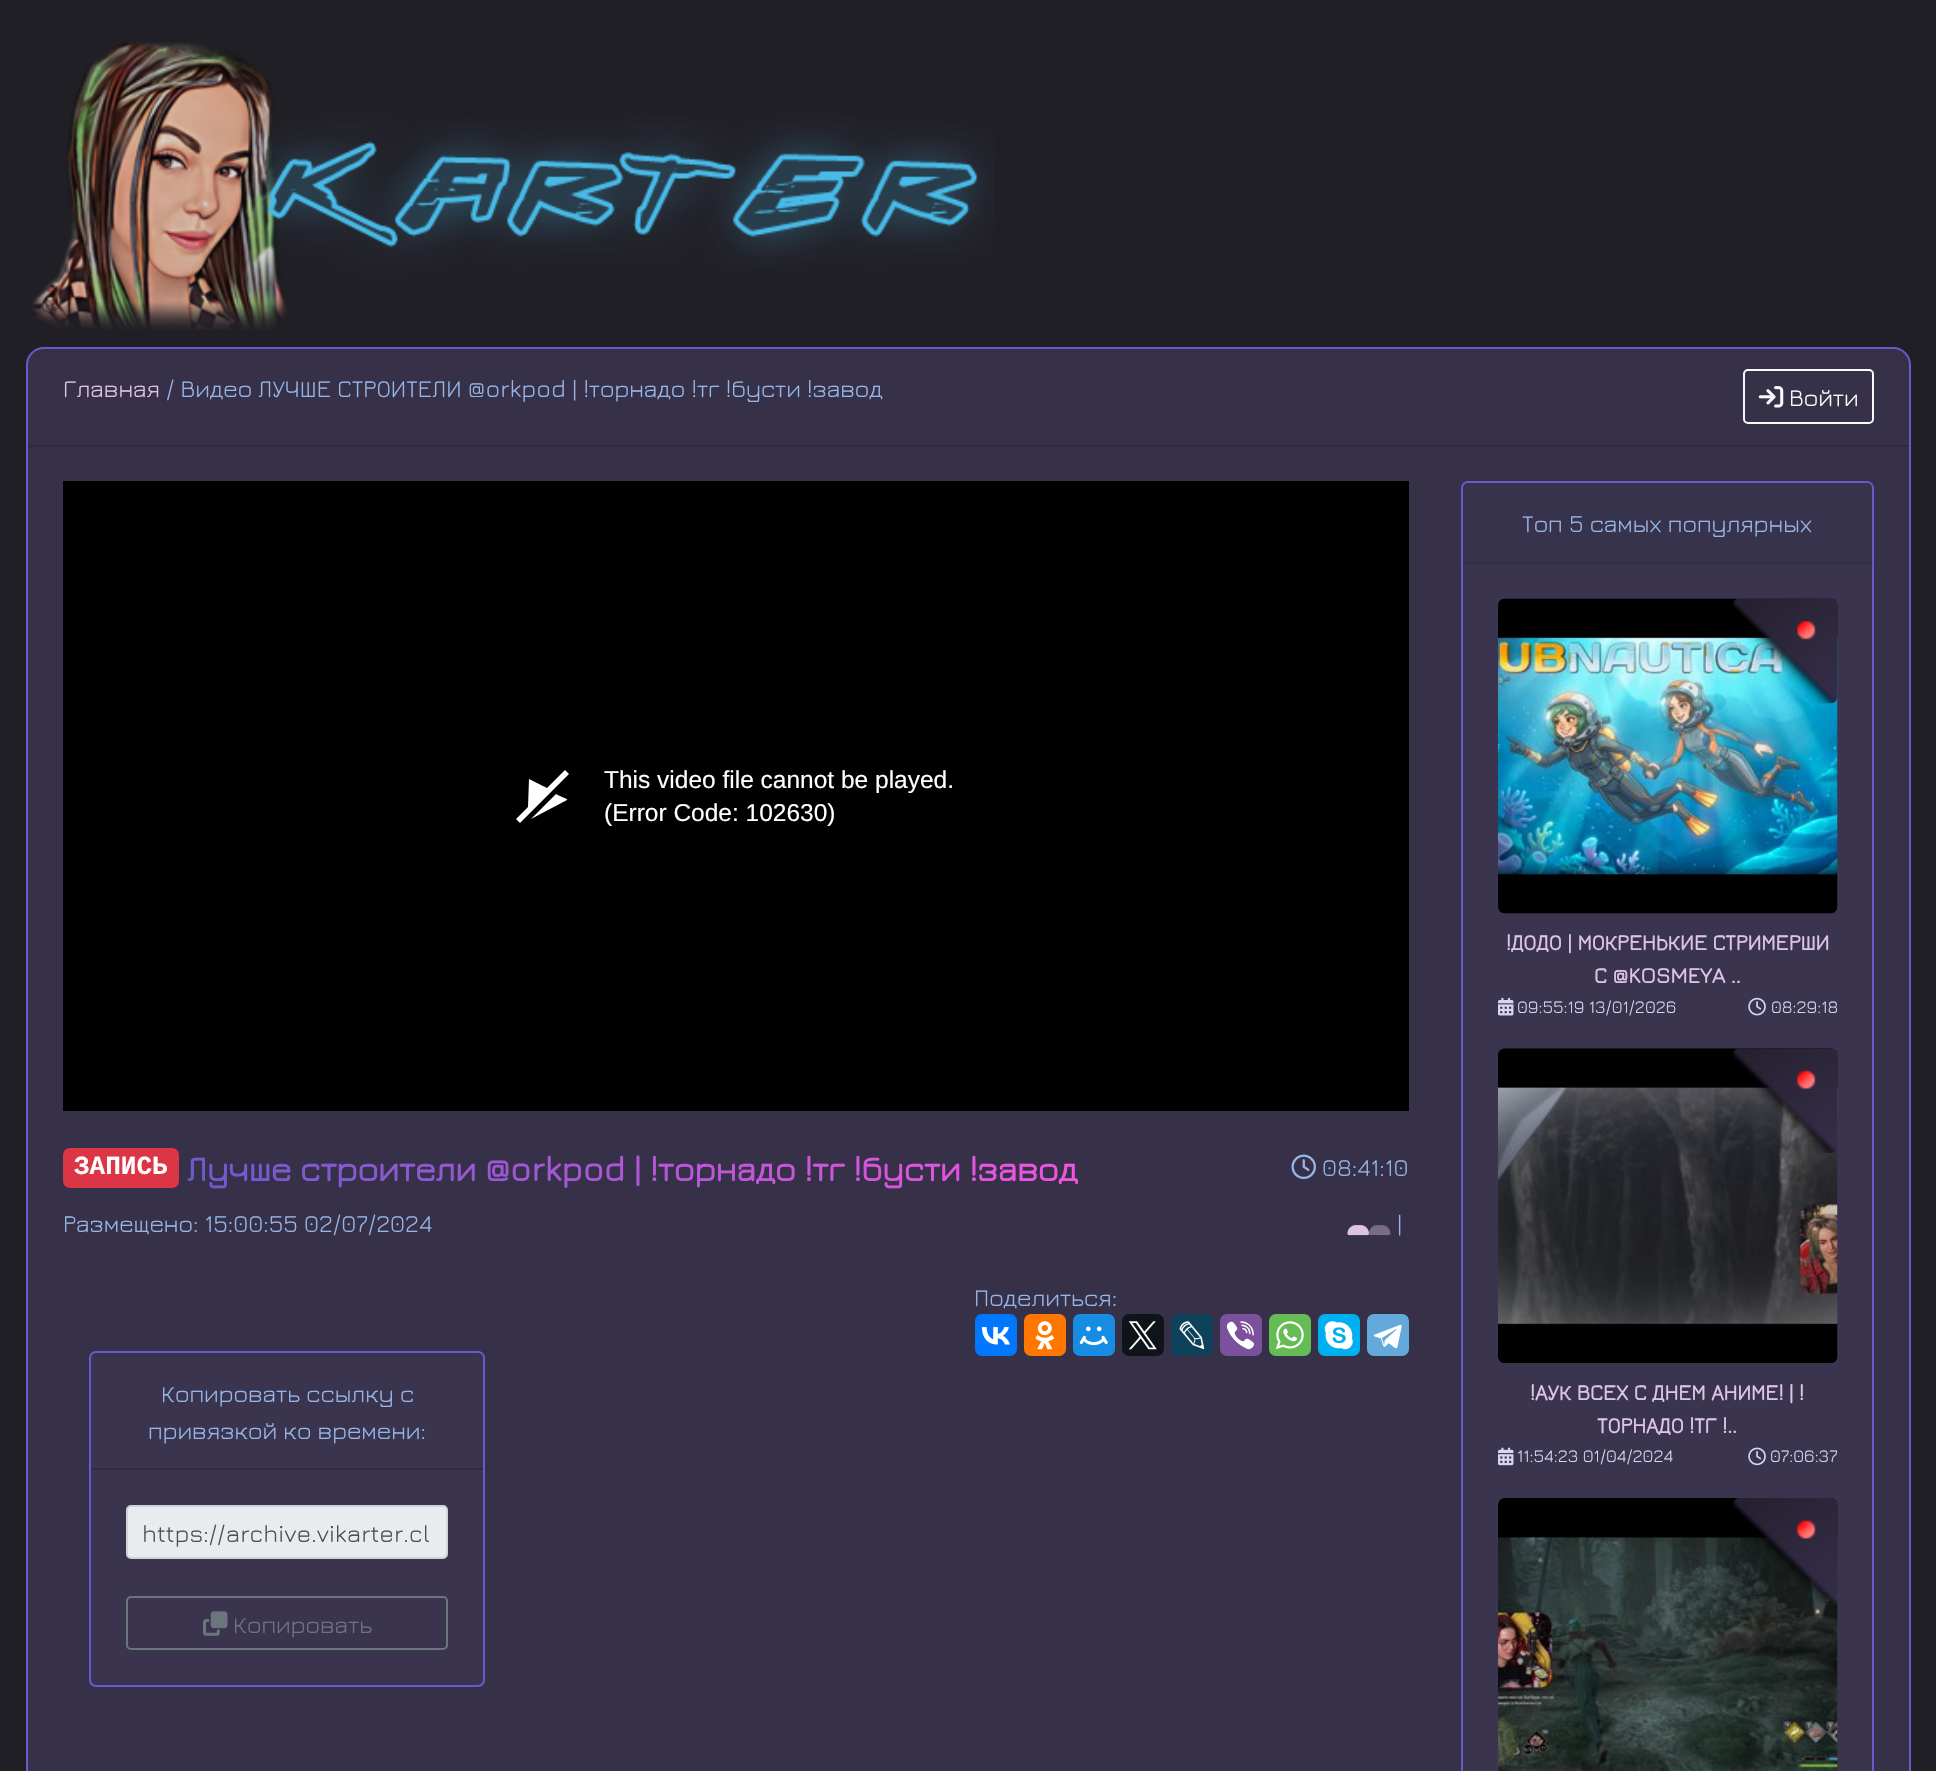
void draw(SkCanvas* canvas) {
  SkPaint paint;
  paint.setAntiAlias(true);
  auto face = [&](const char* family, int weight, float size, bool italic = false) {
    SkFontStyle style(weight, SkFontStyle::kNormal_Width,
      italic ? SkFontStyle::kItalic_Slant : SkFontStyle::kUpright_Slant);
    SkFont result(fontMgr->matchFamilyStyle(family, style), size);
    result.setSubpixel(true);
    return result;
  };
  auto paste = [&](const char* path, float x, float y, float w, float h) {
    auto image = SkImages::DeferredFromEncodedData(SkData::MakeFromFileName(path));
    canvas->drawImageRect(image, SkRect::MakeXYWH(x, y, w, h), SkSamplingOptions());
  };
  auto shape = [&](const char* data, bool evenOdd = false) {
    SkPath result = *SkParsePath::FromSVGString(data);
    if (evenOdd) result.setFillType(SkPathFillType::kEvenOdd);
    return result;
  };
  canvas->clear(0xff211f26);
  paste("img/1.png", 31, 42, 964, 288);
  paint.setColor(0xff363149);
  canvas->drawPath(shape("M44 348H1893C1902.5 348 1910 355.5 1910 365V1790H27V365C27 355.5 34.5 348 44 348Z"), paint);
  paint.setStroke(true);
  paint.setStrokeWidth(2);
  paint.setColor(0xff6a5acd);
  canvas->drawPath(shape("M44 348H1893C1902.5 348 1910 355.5 1910 365V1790H27V365C27 355.5 34.5 348 44 348Z"), paint);
  paint.setStroke(false);
  paint.setColor(0x08000000);
  canvas->drawRect(SkRect::MakeXYWH(28, 348, 1881, 15), paint);
  paint.setColor(0xff2f2a3f);
  canvas->drawRect(SkRect::MakeXYWH(28, 445, 1881, 2), paint);
  paint.setStroke(true);
  paint.setColor(0xfff8f9fa);
  canvas->drawRoundRect(SkRect::MakeXYWH(1744, 370, 129, 53), 4, 4, paint);
  paste("img/2.png", 1758, 386, 26, 22);
  paint.setStroke(false);
  paint.setColor(0xff000000);
  canvas->drawRect(SkRect::MakeXYWH(63, 481, 1346, 630), paint);
  paint.setColor(0xffffffff);
  canvas->drawPath(shape("M567 800L531 819L556 794C566 799 568 799 567 800ZM565 770L547 788L529 779L528 807L516 819L520 823L569 774Z"), paint);
  paint.setColor(0xffdc3545);
  canvas->drawRoundRect(SkRect::MakeXYWH(63, 1148, 116, 40), 7, 7, paint);
  paste("img/3.png", 1291, 1154, 25, 26);
  paste("img/4.png", 1347, 1225, 22, 11);
  paste("img/5.png", 1347, 1225, 44, 11);
  paint.setColor(0xff0077ff);
  canvas->drawRoundRect(SkRect::MakeXYWH(975, 1314, 42, 42), 7, 7, paint);
  paste("img/6.png", 981, 1327, 29, 18);
  paint.setColor(0xffff7700);
  canvas->drawRoundRect(SkRect::MakeXYWH(1024, 1314, 42, 42), 7, 7, paint);
  paste("img/7.png", 1035, 1321, 20, 29);
  paint.setColor(0xff168de2);
  canvas->drawRoundRect(SkRect::MakeXYWH(1073, 1314, 42, 42), 7, 7, paint);
  paste("img/8.png", 1079, 1326, 29, 20);
  paint.setColor(0xff0f1419);
  canvas->drawRoundRect(SkRect::MakeXYWH(1122, 1314, 42, 42), 7, 7, paint);
  paste("img/9.png", 1128, 1321, 29, 29);
  paint.setColor(0xff0d425a);
  canvas->drawRoundRect(SkRect::MakeXYWH(1171, 1314, 42, 42), 7, 7, paint);
  paste("img/10.png", 1179, 1321, 26, 29);
  paint.setColor(0xff7b519d);
  canvas->drawRoundRect(SkRect::MakeXYWH(1220, 1314, 42, 42), 7, 7, paint);
  paste("img/11.png", 1226, 1321, 29, 29);
  paint.setColor(0xff65bc54);
  canvas->drawRoundRect(SkRect::MakeXYWH(1269, 1314, 42, 42), 7, 7, paint);
  paste("img/12.png", 1275, 1321, 29, 29);
  paint.setColor(0xff00aff0);
  canvas->drawRoundRect(SkRect::MakeXYWH(1318, 1314, 42, 42), 7, 7, paint);
  paste("img/13.png", 1324, 1321, 29, 29);
  paint.setColor(0xff64a9dc);
  canvas->drawRoundRect(SkRect::MakeXYWH(1367, 1314, 42, 42), 7, 7, paint);
  paste("img/14.png", 1373, 1324, 29, 25);
  paint.setColor(0xff3a344f);
  canvas->drawRoundRect(SkRect::MakeXYWH(90, 1352, 394, 334), 6, 6, paint);
  paint.setStroke(true);
  paint.setColor(0xff6a5acd);
  canvas->drawRoundRect(SkRect::MakeXYWH(90, 1352, 394, 334), 6, 6, paint);
  paint.setStroke(false);
  paint.setColor(0x08000000);
  canvas->drawRect(SkRect::MakeXYWH(91, 1353, 392, 4), paint);
  paint.setColor(0xff312c43);
  canvas->drawRect(SkRect::MakeXYWH(91, 1468, 392, 2), paint);
  paint.setColor(0xffe9ecef);
  canvas->drawRoundRect(SkRect::MakeXYWH(127, 1506, 320, 52), 4, 4, paint);
  paint.setStroke(true);
  paint.setColor(0xffced4da);
  canvas->drawRoundRect(SkRect::MakeXYWH(127, 1506, 320, 52), 4, 4, paint);
  paint.setColor(0xff6c757d);
  canvas->drawRoundRect(SkRect::MakeXYWH(127, 1597, 320, 52), 4, 4, paint);
  paste("img/15.png", 203, 1611, 25, 25);
  paint.setStroke(false);
  paint.setColor(0xff3a344f);
  canvas->drawRoundRect(SkRect::MakeXYWH(1462, 482, 411, 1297), 6, 6, paint);
  paint.setStroke(true);
  paint.setColor(0xff6a5acd);
  canvas->drawRoundRect(SkRect::MakeXYWH(1462, 482, 411, 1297), 6, 6, paint);
  paint.setStroke(false);
  paint.setColor(0x08000000);
  canvas->drawRect(SkRect::MakeXYWH(1463, 483, 410, 81), paint);
  paint.setColor(0x1f000000);
  canvas->drawRect(SkRect::MakeXYWH(1463, 562, 410, 2), paint);
  paste("img/16.png", 1498, 598, 340, 316);
  paste("img/17.png", 1733, 599, 105, 105);
  paste("img/18.png", 1498, 997, 16, 19);
  paste("img/19.png", 1748, 997, 18, 19);
  paste("img/20.png", 1498, 1048, 340, 316);
  paste("img/21.png", 1733, 1048, 105, 105);
  paste("img/22.png", 1498, 1447, 16, 19);
  paste("img/23.png", 1748, 1447, 18, 19);
  paste("img/24.png", 1498, 1498, 340, 273);
  paste("img/25.png", 1733, 1498, 104, 105);
  auto f0 = face("Jura", 300, 24.5f);
  paint.setColor(0xffddc3e8);
  canvas->drawString("Главная", 63, 397, f0, paint);
  paint.setColor(0xff97b5e6);
  canvas->drawString("/ Видео ЛУЧШЕ СТРОИТЕЛИ @orkpod | !торнадо !тг !бусти !завод", 166, 397, f0, paint);
  paint.setColor(0xfff8f9fa);
  canvas->drawString("Войти", 1789, 406, f0, paint);
  auto f1 = face("Liberation Sans", 400, 24.5f);
  paint.setColor(0xffffffff);
  canvas->drawString("This video file cannot be played.", 604, 788, f1, paint);
  canvas->drawString("(Error Code: 102630)", 604, 821, f1, paint);
  auto f2 = face("Liberation Mono", 700, 26);
  canvas->drawString("ЗАПИСЬ", 74, 1174, f2, paint);
  auto f3 = face("Jura", 700, 35);
  {
    const SkColor colors[] = {0xff6a5acd, 0xfff754e1};
    const float stops[] = {0, 1};
    const SkPoint ends[] = {{400, 1401}, {865, 935}};
    paint.setShader(SkGradientShader::MakeLinear(ends, colors, stops, 2, SkTileMode::kClamp));
    paint.setAlpha(255);
  }
  canvas->drawString("Лучше строители @orkpod | !торнадо !тг !бусти !завод", 187, 1181, f3, paint);
  paint.setShader(nullptr);
  paint.setColor(0xff97b5e6);
  {
    const struct { const char* s; float x, y; } items[] = {
      {"08:41:10", 1322, 1176},
      {"Размещено: 15:00:55 02/07/2024", 63, 1232},
      {"|", 1397, 1232},
      {"Поделиться:", 974, 1306},
      {"Копировать ссылку с", 161, 1402},
      {"привязкой ко времени:", 148, 1439},
    };
    for (auto [s, x, y] : items) {
      canvas->drawString(s, x, y, f0, paint);
    }
  }
  paint.setColor(0xff495057);
  canvas->drawString("https://archive.vikarter.cl", 142, 1542, f0, paint);
  paint.setColor(0xff6c757d);
  canvas->drawString("Копировать", 233, 1633, f0, paint);
  paint.setColor(0xff97b5e6);
  canvas->drawString("Топ 5 самых популярных", 1522, 532, f0, paint);
  auto f4 = face("Jura", 700, 22);
  paint.setColor(0xffddc3e8);
  canvas->drawString("!ДОДО | МОКРЕНЬКИЕ СТРИМЕРШИ", 1506, 950, f4, paint);
  canvas->drawString("С @KOSMEYA ..", 1594, 983, f4, paint);
  auto f5 = face("Jura", 300, 17.75f);
  paint.setColor(0xffd5d7f2);
  canvas->drawString("09:55:19 13/01/2026", 1517, 1013, f5, paint);
  canvas->drawString("08:29:18", 1771, 1013, f5, paint);
  paint.setColor(0xffddc3e8);
  canvas->drawString("!АУК ВСЕХ С ДНЕМ АНИМЕ! | !", 1530, 1400, f4, paint);
  canvas->drawString("ТОРНАДО !ТГ !..", 1597, 1433, f4, paint);
  paint.setColor(0xffd5d7f2);
  canvas->drawString("11:54:23 01/04/2024", 1517, 1462, f5, paint);
  canvas->drawString("07:06:37", 1770, 1462, f5, paint);
}
